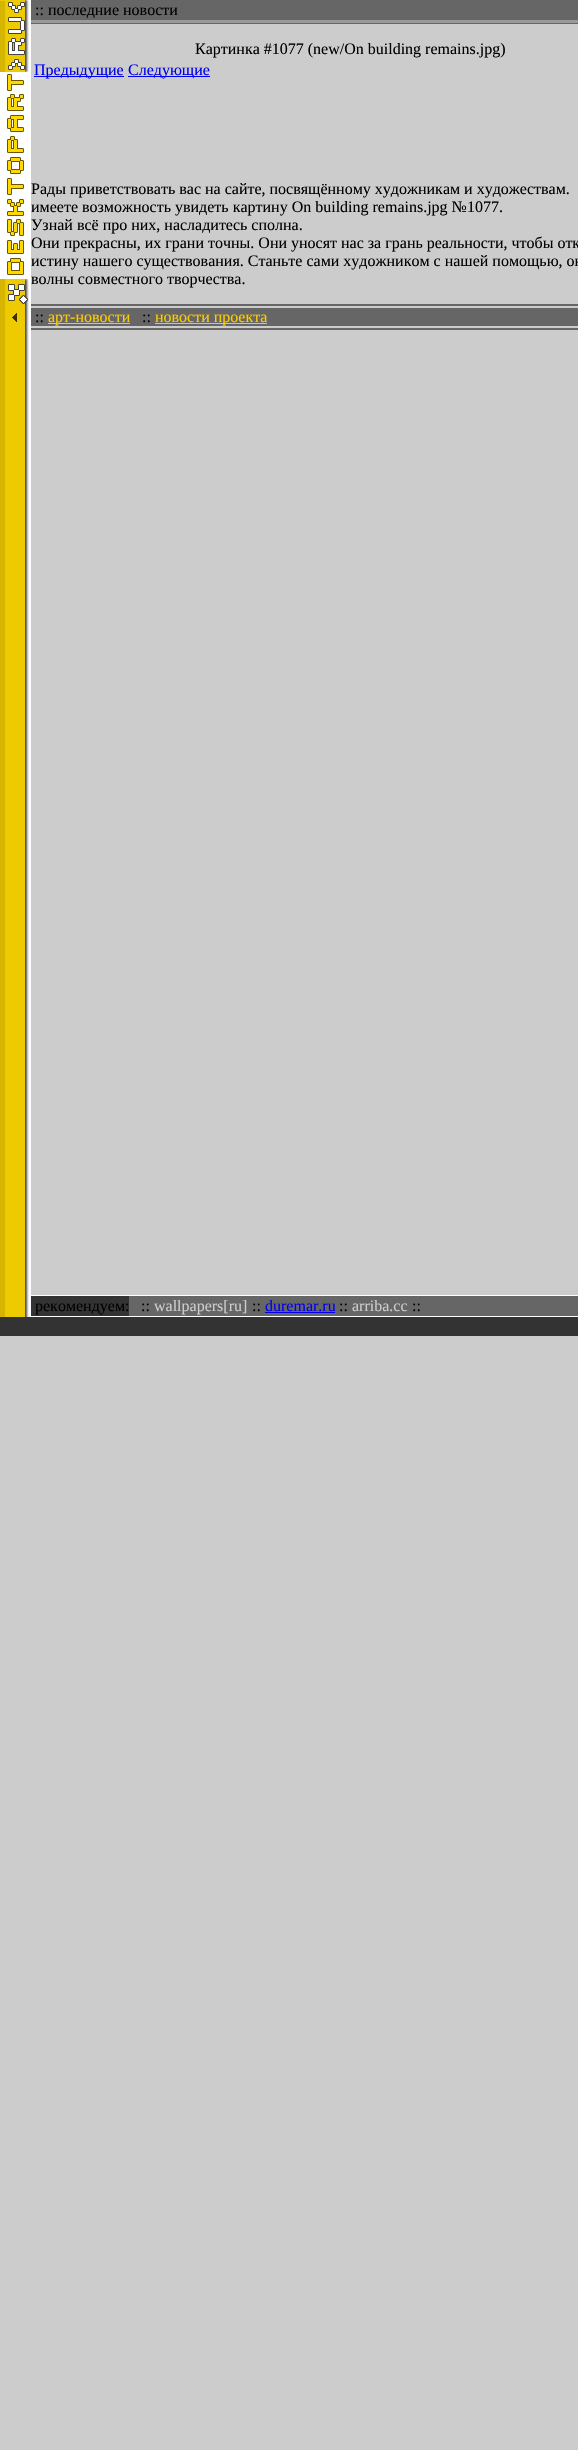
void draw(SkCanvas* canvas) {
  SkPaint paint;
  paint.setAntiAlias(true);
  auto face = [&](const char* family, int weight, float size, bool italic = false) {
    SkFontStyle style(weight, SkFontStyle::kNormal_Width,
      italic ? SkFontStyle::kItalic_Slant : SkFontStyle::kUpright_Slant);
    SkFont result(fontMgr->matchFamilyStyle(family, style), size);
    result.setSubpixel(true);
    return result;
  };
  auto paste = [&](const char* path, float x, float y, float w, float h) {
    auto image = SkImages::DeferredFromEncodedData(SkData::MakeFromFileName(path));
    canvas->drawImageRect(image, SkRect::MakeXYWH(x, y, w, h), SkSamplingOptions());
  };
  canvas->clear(0xffcccccc);
  paste("img/1.png", 0, 0, 31, 1295);
  paste("img/2.png", 0, 0, 29, 304);
  paste("img/3.png", 12, 313, 5, 9);
  {
    const struct { float x, y, w, h; SkColor color; } items[] = {
      {31, 0, 547, 20, 0xff666666},
      {31, 20, 547, 3, 0xff999999},
      {31, 23, 547, 1, 0xff666666},
      {34, 76, 90, 1, 0xff0000ee},
      {128, 76, 82, 1, 0xff0000ee},
      {31, 304, 547, 2, 0xff666666},
      {31, 308, 547, 18, 0xff666666},
      {48, 323, 82, 1, 0xffffcc00},
      {155, 323, 112, 1, 0xffffcc00},
      {31, 328, 547, 2, 0xff666666},
    };
    for (auto [x, y, w, h, color] : items) {
      paint.setColor(color);
      canvas->drawRect(SkRect::MakeXYWH(x, y, w, h), paint);
    }
  }
  paste("img/4.png", 0, 1295, 31, 22);
  {
    const struct { float x, y, w, h; SkColor color; } items[] = {
      {31, 1295, 547, 1, 0xffffffff},
      {129, 1296, 449, 20, 0xff666666},
      {31, 1296, 98, 20, 0xff333333},
      {265, 1312, 70, 1, 0xff0000ee},
      {31, 1316, 547, 1, 0xffffffff},
      {0, 1317, 578, 19, 0xff333333},
    };
    for (auto [x, y, w, h, color] : items) {
      paint.setColor(color);
      canvas->drawRect(SkRect::MakeXYWH(x, y, w, h), paint);
    }
  }
  auto f0 = face("Liberation Serif", 400, 16);
  paint.setColor(0xff000000);
  canvas->drawString(":: последние новости", 35, 15, f0, paint);
  canvas->drawString("Картинка #1077 (new/On building remains.jpg)", 195, 54, f0, paint);
  paint.setColor(0xff0000ee);
  canvas->drawString("Предыдущие", 34, 75, f0, paint);
  canvas->drawString("Следующие", 128, 75, f0, paint);
  paint.setColor(0xff000000);
  {
    const struct { const char* s; float x, y; } items[] = {
      {"Рады приветствовать вас на сайте, посвящённому художникам и художествам.", 31, 194},
      {"имеете возможность увидеть картину On building remains.jpg №1077.", 31, 212},
      {"Узнай всё про них, насладитесь сполна.", 31, 230},
      {"Они прекрасны, их грани точны. Они уносят нас за грань реальности, чтобы отк", 31, 248},
      {"истину нашего существования. Станьте сами художником с нашей помощью, ок", 31, 266},
      {"волны совместного творчества.", 31, 284},
      {"::", 35, 322},
    };
    for (auto [s, x, y] : items) {
      canvas->drawString(s, x, y, f0, paint);
    }
  }
  paint.setColor(0xffffcc00);
  canvas->drawString("арт-новости", 48, 322, f0, paint);
  paint.setColor(0xff000000);
  canvas->drawString("::", 142, 322, f0, paint);
  paint.setColor(0xffffcc00);
  canvas->drawString("новости проекта", 155, 322, f0, paint);
  paint.setColor(0xff000000);
  canvas->drawString("рекомендуем:", 35, 1311, f0, paint);
  canvas->drawString("::", 141, 1311, f0, paint);
  paint.setColor(0xffcccccc);
  canvas->drawString("wallpapers[ru]", 154, 1311, f0, paint);
  paint.setColor(0xff000000);
  canvas->drawString("::", 252, 1311, f0, paint);
  paint.setColor(0xff0000ee);
  canvas->drawString("duremar.ru", 265, 1311, f0, paint);
  paint.setColor(0xff000000);
  canvas->drawString("::", 339, 1311, f0, paint);
  paint.setColor(0xffcccccc);
  canvas->drawString("arriba.cc", 352, 1311, f0, paint);
  paint.setColor(0xff000000);
  canvas->drawString("::", 412, 1311, f0, paint);
}
